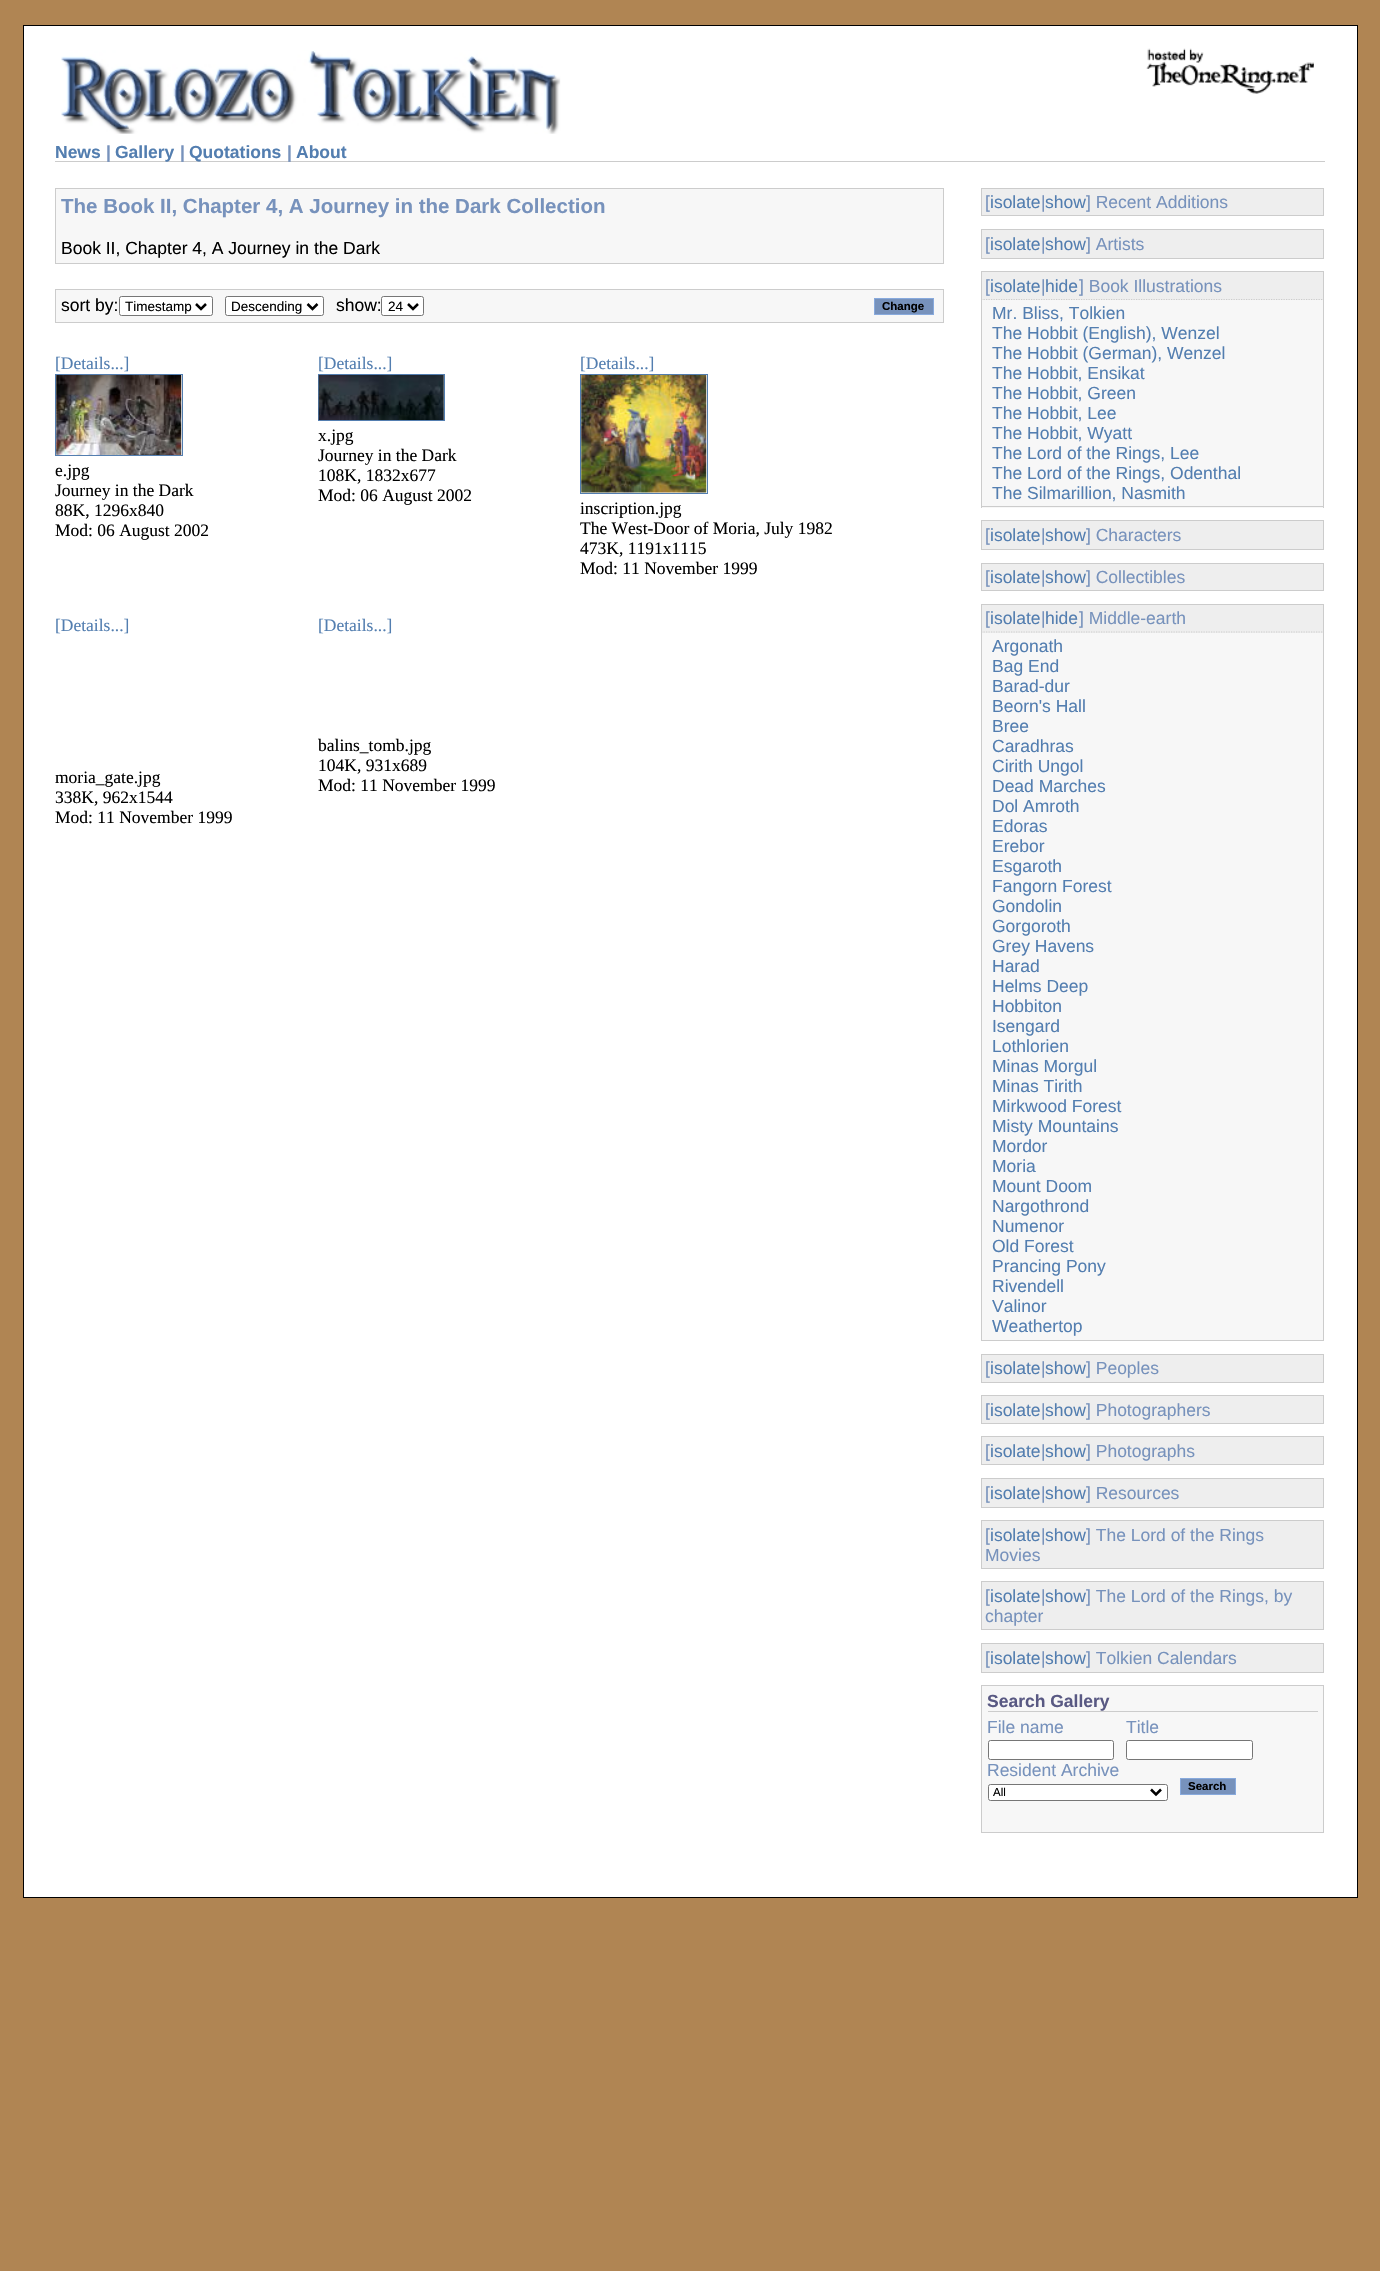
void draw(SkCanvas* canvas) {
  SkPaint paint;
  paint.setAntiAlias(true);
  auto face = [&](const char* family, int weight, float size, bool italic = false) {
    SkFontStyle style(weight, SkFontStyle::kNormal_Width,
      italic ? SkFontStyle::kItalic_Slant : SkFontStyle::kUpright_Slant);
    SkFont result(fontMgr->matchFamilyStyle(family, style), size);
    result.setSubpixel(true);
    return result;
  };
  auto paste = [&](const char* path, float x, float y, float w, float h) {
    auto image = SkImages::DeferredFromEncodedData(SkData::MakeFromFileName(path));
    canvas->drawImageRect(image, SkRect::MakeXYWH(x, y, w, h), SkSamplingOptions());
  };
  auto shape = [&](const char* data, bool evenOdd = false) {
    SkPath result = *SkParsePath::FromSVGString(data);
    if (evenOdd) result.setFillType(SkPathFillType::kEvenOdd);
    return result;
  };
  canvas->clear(0xffb08553);
  paint.setColor(0xffffffff);
  canvas->drawRect(SkRect::MakeXYWH(23.5f, 25.5f, 1334, 1872), paint);
  paint.setStroke(true);
  paint.setStrokeWidth(1);
  paint.setColor(0xff000000);
  canvas->drawRect(SkRect::MakeXYWH(23.5f, 25.5f, 1334, 1872), paint);
  paste("img/1.png", 61, 50, 500, 84);
  paste("img/2.png", 1146, 48, 168, 46);
  paint.setStroke(false);
  paint.setColor(0xffcccccc);
  canvas->drawRect(SkRect::MakeXYWH(55, 161, 1270, 1), paint);
  paint.setColor(0xfff7f7f7);
  canvas->drawRect(SkRect::MakeXYWH(55.5f, 188.5f, 888, 75), paint);
  paint.setStroke(true);
  paint.setColor(0xffcccccc);
  canvas->drawRect(SkRect::MakeXYWH(55.5f, 188.5f, 888, 75), paint);
  paint.setStroke(false);
  paint.setColor(0xfff7f7f7);
  canvas->drawRect(SkRect::MakeXYWH(55.5f, 289.5f, 888, 33), paint);
  paint.setStroke(true);
  paint.setColor(0xffcccccc);
  canvas->drawRect(SkRect::MakeXYWH(55.5f, 289.5f, 888, 33), paint);
  paint.setStroke(false);
  paint.setColor(0xffffffff);
  canvas->drawRoundRect(SkRect::MakeXYWH(119.5f, 296.5f, 93, 19), 2, 2, paint);
  paint.setStroke(true);
  paint.setColor(0xff767676);
  canvas->drawRoundRect(SkRect::MakeXYWH(119.5f, 296.5f, 93, 19), 2, 2, paint);
  paint.setStrokeWidth(2.5f);
  paint.setColor(0xff000000);
  canvas->drawPath(shape("M196 304L201 309L206 304"), paint);
  paint.setStroke(false);
  paint.setColor(0xffffffff);
  canvas->drawRoundRect(SkRect::MakeXYWH(225.5f, 296.5f, 98, 19), 2, 2, paint);
  paint.setStroke(true);
  paint.setStrokeWidth(1);
  paint.setColor(0xff767676);
  canvas->drawRoundRect(SkRect::MakeXYWH(225.5f, 296.5f, 98, 19), 2, 2, paint);
  paint.setStrokeWidth(2.5f);
  paint.setColor(0xff000000);
  canvas->drawPath(shape("M307.5 304L312.5 309L317.5 304"), paint);
  paint.setStroke(false);
  paint.setColor(0xffffffff);
  canvas->drawRoundRect(SkRect::MakeXYWH(381.5f, 296.5f, 42, 19), 2, 2, paint);
  paint.setStroke(true);
  paint.setStrokeWidth(1);
  paint.setColor(0xff767676);
  canvas->drawRoundRect(SkRect::MakeXYWH(381.5f, 296.5f, 42, 19), 2, 2, paint);
  paint.setStrokeWidth(2.5f);
  paint.setColor(0xff000000);
  canvas->drawPath(shape("M408 304L413 309L418 304"), paint);
  paint.setStroke(false);
  paint.setColor(0xff7792bc);
  canvas->drawRect(SkRect::MakeXYWH(874.5f, 298.5f, 59, 16), paint);
  paint.setStroke(true);
  paint.setStrokeWidth(1);
  paint.setColor(0xff88aadd);
  canvas->drawRect(SkRect::MakeXYWH(874.5f, 298.5f, 59, 16), paint);
  paint.setColor(0xff537eb0);
  canvas->drawRect(SkRect::MakeXYWH(55.5f, 374.5f, 127, 81), paint);
  paste("img/3.png", 56, 375, 126, 80);
  canvas->drawRect(SkRect::MakeXYWH(318.5f, 374.5f, 126, 46), paint);
  paste("img/4.png", 318, 375, 126, 45);
  canvas->drawRect(SkRect::MakeXYWH(580.5f, 374.5f, 127, 119), paint);
  paste("img/5.png", 581, 375, 126, 118);
  paint.setStroke(false);
  paint.setColor(0xffeeeeee);
  canvas->drawRect(SkRect::MakeXYWH(981.5f, 188.5f, 342, 27), paint);
  paint.setStroke(true);
  paint.setColor(0xffcccccc);
  canvas->drawRect(SkRect::MakeXYWH(981.5f, 188.5f, 342, 27), paint);
  paint.setStroke(false);
  paint.setColor(0xffeeeeee);
  canvas->drawRect(SkRect::MakeXYWH(981.5f, 229.5f, 342, 29), paint);
  paint.setStroke(true);
  paint.setColor(0xffcccccc);
  canvas->drawRect(SkRect::MakeXYWH(981.5f, 229.5f, 342, 29), paint);
  paint.setStroke(false);
  {
    const struct { float x, y, w, h; SkColor color; } items[] = {
      {982, 272, 341, 28, 0xffeeeeee},
      {981, 271, 343, 1, 0xffcccccc},
      {1323, 271, 1, 29, 0xffcccccc},
    };
    for (auto [x, y, w, h, color] : items) {
      paint.setColor(color);
      canvas->drawRect(SkRect::MakeXYWH(x, y, w, h), paint);
    }
  }
  paint.setStroke(true);
  paint.setStrokeWidth(1.2f);
  paint.setPathEffect(SkDashPathEffect::Make({{1.25f, 1.25f}}, 0));
  canvas->drawPath(shape("M981 299.5H1324"), paint);
  paint.setPathEffect(nullptr);
  paint.setStroke(false);
  {
    const struct { float x, y, w, h; SkColor color; } items[] = {
      {981, 271, 1, 29, 0xffcccccc},
      {982, 300, 341, 208, 0xfff7f7f7},
      {1323, 300, 1, 208, 0xffcccccc},
      {981, 506, 343, 1, 0xffcccccc},
      {981, 300, 1, 208, 0xffcccccc},
    };
    for (auto [x, y, w, h, color] : items) {
      paint.setColor(color);
      canvas->drawRect(SkRect::MakeXYWH(x, y, w, h), paint);
    }
  }
  paint.setColor(0xffeeeeee);
  canvas->drawRect(SkRect::MakeXYWH(981.5f, 520.5f, 342, 29), paint);
  paint.setStroke(true);
  paint.setStrokeWidth(1);
  paint.setColor(0xffcccccc);
  canvas->drawRect(SkRect::MakeXYWH(981.5f, 520.5f, 342, 29), paint);
  paint.setStroke(false);
  paint.setColor(0xffeeeeee);
  canvas->drawRect(SkRect::MakeXYWH(981.5f, 563.5f, 342, 27), paint);
  paint.setStroke(true);
  paint.setColor(0xffcccccc);
  canvas->drawRect(SkRect::MakeXYWH(981.5f, 563.5f, 342, 27), paint);
  paint.setStroke(false);
  {
    const struct { float x, y, w, h; SkColor color; } items[] = {
      {982, 605, 341, 28, 0xffeeeeee},
      {981, 604, 343, 1, 0xffcccccc},
      {1323, 604, 1, 737, 0xffcccccc},
    };
    for (auto [x, y, w, h, color] : items) {
      paint.setColor(color);
      canvas->drawRect(SkRect::MakeXYWH(x, y, w, h), paint);
    }
  }
  paint.setStroke(true);
  paint.setStrokeWidth(1.2f);
  paint.setPathEffect(SkDashPathEffect::Make({{1.25f, 1.25f}}, 0));
  canvas->drawPath(shape("M981 632H1324"), paint);
  paint.setPathEffect(nullptr);
  paint.setStroke(false);
  {
    const struct { float x, y, w, h; SkColor color; } items[] = {
      {981, 604, 1, 29, 0xffcccccc},
      {982, 633, 341, 707, 0xfff7f7f7},
      {981, 1340, 343, 1, 0xffcccccc},
      {981, 633, 1, 708, 0xffcccccc},
    };
    for (auto [x, y, w, h, color] : items) {
      paint.setColor(color);
      canvas->drawRect(SkRect::MakeXYWH(x, y, w, h), paint);
    }
  }
  paint.setColor(0xffeeeeee);
  canvas->drawRect(SkRect::MakeXYWH(981.5f, 1354.5f, 342, 28), paint);
  paint.setStroke(true);
  paint.setStrokeWidth(1);
  paint.setColor(0xffcccccc);
  canvas->drawRect(SkRect::MakeXYWH(981.5f, 1354.5f, 342, 28), paint);
  paint.setStroke(false);
  paint.setColor(0xffeeeeee);
  canvas->drawRect(SkRect::MakeXYWH(981.5f, 1395.5f, 342, 28), paint);
  paint.setStroke(true);
  paint.setColor(0xffcccccc);
  canvas->drawRect(SkRect::MakeXYWH(981.5f, 1395.5f, 342, 28), paint);
  paint.setStroke(false);
  paint.setColor(0xffeeeeee);
  canvas->drawRect(SkRect::MakeXYWH(981.5f, 1436.5f, 342, 28), paint);
  paint.setStroke(true);
  paint.setColor(0xffcccccc);
  canvas->drawRect(SkRect::MakeXYWH(981.5f, 1436.5f, 342, 28), paint);
  paint.setStroke(false);
  paint.setColor(0xffeeeeee);
  canvas->drawRect(SkRect::MakeXYWH(981.5f, 1478.5f, 342, 29), paint);
  paint.setStroke(true);
  paint.setColor(0xffcccccc);
  canvas->drawRect(SkRect::MakeXYWH(981.5f, 1478.5f, 342, 29), paint);
  paint.setStroke(false);
  paint.setColor(0xffeeeeee);
  canvas->drawRect(SkRect::MakeXYWH(981.5f, 1520.5f, 342, 48), paint);
  paint.setStroke(true);
  paint.setColor(0xffcccccc);
  canvas->drawRect(SkRect::MakeXYWH(981.5f, 1520.5f, 342, 48), paint);
  paint.setStroke(false);
  paint.setColor(0xffeeeeee);
  canvas->drawRect(SkRect::MakeXYWH(981.5f, 1581.5f, 342, 48), paint);
  paint.setStroke(true);
  paint.setColor(0xffcccccc);
  canvas->drawRect(SkRect::MakeXYWH(981.5f, 1581.5f, 342, 48), paint);
  paint.setStroke(false);
  paint.setColor(0xffeeeeee);
  canvas->drawRect(SkRect::MakeXYWH(981.5f, 1643.5f, 342, 29), paint);
  paint.setStroke(true);
  paint.setColor(0xffcccccc);
  canvas->drawRect(SkRect::MakeXYWH(981.5f, 1643.5f, 342, 29), paint);
  paint.setStroke(false);
  paint.setColor(0xfff7f7f7);
  canvas->drawRect(SkRect::MakeXYWH(981.5f, 1685.5f, 342, 147), paint);
  paint.setStroke(true);
  paint.setColor(0xffcccccc);
  canvas->drawRect(SkRect::MakeXYWH(981.5f, 1685.5f, 342, 147), paint);
  paint.setStroke(false);
  canvas->drawRect(SkRect::MakeXYWH(988, 1711, 330, 1), paint);
  paint.setColor(0xffffffff);
  canvas->drawRoundRect(SkRect::MakeXYWH(988.5f, 1740.5f, 125, 19), 2, 2, paint);
  paint.setStroke(true);
  paint.setColor(0xff767676);
  canvas->drawRoundRect(SkRect::MakeXYWH(988.5f, 1740.5f, 125, 19), 2, 2, paint);
  paint.setStroke(false);
  paint.setColor(0xffffffff);
  canvas->drawRoundRect(SkRect::MakeXYWH(1126.5f, 1740.5f, 126, 19), 2, 2, paint);
  paint.setStroke(true);
  paint.setColor(0xff767676);
  canvas->drawRoundRect(SkRect::MakeXYWH(1126.5f, 1740.5f, 126, 19), 2, 2, paint);
  paint.setStroke(false);
  paint.setColor(0xffffffff);
  canvas->drawRoundRect(SkRect::MakeXYWH(988.5f, 1784.5f, 179, 16), 2, 2, paint);
  paint.setStroke(true);
  paint.setColor(0xff767676);
  canvas->drawRoundRect(SkRect::MakeXYWH(988.5f, 1784.5f, 179, 16), 2, 2, paint);
  paint.setStrokeWidth(2.5f);
  paint.setColor(0xff000000);
  canvas->drawPath(shape("M1151 1789.5L1156 1794.5L1161 1789.5"), paint);
  paint.setStroke(false);
  paint.setColor(0xff7792bc);
  canvas->drawRect(SkRect::MakeXYWH(1180.5f, 1778.5f, 55, 16), paint);
  paint.setStroke(true);
  paint.setStrokeWidth(1);
  paint.setColor(0xff88aadd);
  canvas->drawRect(SkRect::MakeXYWH(1180.5f, 1778.5f, 55, 16), paint);
  auto f0 = face("Liberation Sans", 700, 17.5f);
  paint.setStroke(false);
  paint.setColor(0xff537eb0);
  canvas->drawString("News", 55, 158, f0, paint);
  paint.setColor(0xff7792bc);
  canvas->drawString("|", 106, 158, f0, paint);
  paint.setColor(0xff537eb0);
  canvas->drawString("Gallery", 115, 158, f0, paint);
  paint.setColor(0xff7792bc);
  canvas->drawString("|", 180, 158, f0, paint);
  paint.setColor(0xff537eb0);
  canvas->drawString("Quotations", 189, 158, f0, paint);
  paint.setColor(0xff7792bc);
  canvas->drawString("|", 287, 158, f0, paint);
  paint.setColor(0xff537eb0);
  canvas->drawString("About", 296, 158, f0, paint);
  auto f1 = face("Liberation Sans", 700, 20.5f);
  paint.setColor(0xff7792bc);
  canvas->drawString("The Book II, Chapter 4, A Journey in the Dark Collection", 61, 213, f1, paint);
  auto f2 = face("Liberation Sans", 400, 17.5f);
  paint.setColor(0xff000000);
  canvas->drawString("Book II, Chapter 4, A Journey in the Dark", 61, 254, f2, paint);
  canvas->drawString("sort by:", 61, 311, f2, paint);
  auto f3 = face("Liberation Sans", 400, 13.5f);
  canvas->drawString("Timestamp", 125, 311, f3, paint);
  canvas->drawString("Descending", 231, 311, f3, paint);
  canvas->drawString("show:", 336, 311, f2, paint);
  canvas->drawString("24", 388, 311, f3, paint);
  auto f4 = face("Liberation Sans", 700, 11.5f);
  canvas->drawString("Change", 882, 310, f4, paint);
  auto f5 = face("Liberation Serif", 400, 17.5f);
  paint.setColor(0xff537eb0);
  canvas->drawString("[Details...]", 55, 369, f5, paint);
  paint.setColor(0xff000000);
  {
    const struct { const char* s; float x, y; } items[] = {
      {"e.jpg", 55, 476},
      {"Journey in the Dark", 55, 496},
      {"88K, 1296x840", 55, 516},
      {"Mod: 06 August 2002", 55, 536},
    };
    for (auto [s, x, y] : items) {
      canvas->drawString(s, x, y, f5, paint);
    }
  }
  paint.setColor(0xff537eb0);
  canvas->drawString("[Details...]", 318, 369, f5, paint);
  paint.setColor(0xff000000);
  {
    const struct { const char* s; float x, y; } items[] = {
      {"x.jpg", 318, 441},
      {"Journey in the Dark", 318, 461},
      {"108K, 1832x677", 318, 481},
      {"Mod: 06 August 2002", 318, 501},
    };
    for (auto [s, x, y] : items) {
      canvas->drawString(s, x, y, f5, paint);
    }
  }
  paint.setColor(0xff537eb0);
  canvas->drawString("[Details...]", 580, 369, f5, paint);
  paint.setColor(0xff000000);
  {
    const struct { const char* s; float x, y; } items[] = {
      {"inscription.jpg", 580, 514},
      {"The West-Door of Moria, July 1982", 580, 534},
      {"473K, 1191x1115", 580, 554},
      {"Mod: 11 November 1999", 580, 574},
    };
    for (auto [s, x, y] : items) {
      canvas->drawString(s, x, y, f5, paint);
    }
  }
  paint.setColor(0xff537eb0);
  canvas->drawString("[Details...]", 55, 631, f5, paint);
  paint.setColor(0xff000000);
  {
    const struct { const char* s; float x, y; } items[] = {
      {"moria_gate.jpg", 55, 783},
      {"338K, 962x1544", 55, 803},
      {"Mod: 11 November 1999", 55, 823},
    };
    for (auto [s, x, y] : items) {
      canvas->drawString(s, x, y, f5, paint);
    }
  }
  paint.setColor(0xff537eb0);
  canvas->drawString("[Details...]", 318, 631, f5, paint);
  paint.setColor(0xff000000);
  {
    const struct { const char* s; float x, y; } items[] = {
      {"balins_tomb.jpg", 318, 751},
      {"104K, 931x689", 318, 771},
      {"Mod: 11 November 1999", 318, 791},
    };
    for (auto [s, x, y] : items) {
      canvas->drawString(s, x, y, f5, paint);
    }
  }
  paint.setColor(0xff7792bc);
  canvas->drawString("[", 985, 208, f2, paint);
  paint.setColor(0xff537eb0);
  canvas->drawString("isolate", 990, 208, f2, paint);
  paint.setColor(0xff7792bc);
  canvas->drawString("|", 1041, 208, f2, paint);
  paint.setColor(0xff537eb0);
  canvas->drawString("show", 1045, 208, f2, paint);
  paint.setColor(0xff7792bc);
  canvas->drawString("] Recent Additions", 1086, 208, f2, paint);
  canvas->drawString("[", 985, 250, f2, paint);
  paint.setColor(0xff537eb0);
  canvas->drawString("isolate", 990, 250, f2, paint);
  paint.setColor(0xff7792bc);
  canvas->drawString("|", 1041, 250, f2, paint);
  paint.setColor(0xff537eb0);
  canvas->drawString("show", 1045, 250, f2, paint);
  paint.setColor(0xff7792bc);
  canvas->drawString("] Artists", 1086, 250, f2, paint);
  canvas->drawString("[", 985, 292, f2, paint);
  paint.setColor(0xff537eb0);
  canvas->drawString("isolate", 990, 292, f2, paint);
  paint.setColor(0xff7792bc);
  canvas->drawString("|", 1041, 292, f2, paint);
  paint.setColor(0xff537eb0);
  canvas->drawString("hide", 1045, 292, f2, paint);
  paint.setColor(0xff7792bc);
  canvas->drawString("] Book Illustrations", 1079, 292, f2, paint);
  paint.setColor(0xff537eb0);
  {
    const struct { const char* s; float x, y; } items[] = {
      {"Mr. Bliss, Tolkien", 992, 319},
      {"The Hobbit (English), Wenzel", 992, 339},
      {"The Hobbit (German), Wenzel", 992, 359},
      {"The Hobbit, Ensikat", 992, 379},
      {"The Hobbit, Green", 992, 399},
      {"The Hobbit, Lee", 992, 419},
      {"The Hobbit, Wyatt", 992, 439},
      {"The Lord of the Rings, Lee", 992, 459},
      {"The Lord of the Rings, Odenthal", 992, 479},
      {"The Silmarillion, Nasmith", 992, 499},
    };
    for (auto [s, x, y] : items) {
      canvas->drawString(s, x, y, f2, paint);
    }
  }
  paint.setColor(0xff7792bc);
  canvas->drawString("[", 985, 541, f2, paint);
  paint.setColor(0xff537eb0);
  canvas->drawString("isolate", 990, 541, f2, paint);
  paint.setColor(0xff7792bc);
  canvas->drawString("|", 1041, 541, f2, paint);
  paint.setColor(0xff537eb0);
  canvas->drawString("show", 1045, 541, f2, paint);
  paint.setColor(0xff7792bc);
  canvas->drawString("] Characters", 1086, 541, f2, paint);
  canvas->drawString("[", 985, 583, f2, paint);
  paint.setColor(0xff537eb0);
  canvas->drawString("isolate", 990, 583, f2, paint);
  paint.setColor(0xff7792bc);
  canvas->drawString("|", 1041, 583, f2, paint);
  paint.setColor(0xff537eb0);
  canvas->drawString("show", 1045, 583, f2, paint);
  paint.setColor(0xff7792bc);
  canvas->drawString("] Collectibles", 1086, 583, f2, paint);
  canvas->drawString("[", 985, 624, f2, paint);
  paint.setColor(0xff537eb0);
  canvas->drawString("isolate", 990, 624, f2, paint);
  paint.setColor(0xff7792bc);
  canvas->drawString("|", 1041, 624, f2, paint);
  paint.setColor(0xff537eb0);
  canvas->drawString("hide", 1045, 624, f2, paint);
  paint.setColor(0xff7792bc);
  canvas->drawString("] Middle-earth", 1079, 624, f2, paint);
  paint.setColor(0xff537eb0);
  {
    const struct { const char* s; float x, y; } items[] = {
      {"Argonath", 992, 652},
      {"Bag End", 992, 672},
      {"Barad-dur", 992, 692},
      {"Beorn's Hall", 992, 712},
      {"Bree", 992, 732},
      {"Caradhras", 992, 752},
      {"Cirith Ungol", 992, 772},
      {"Dead Marches", 992, 792},
      {"Dol Amroth", 992, 812},
      {"Edoras", 992, 832},
      {"Erebor", 992, 852},
      {"Esgaroth", 992, 872},
      {"Fangorn Forest", 992, 892},
      {"Gondolin", 992, 912},
      {"Gorgoroth", 992, 932},
      {"Grey Havens", 992, 952},
      {"Harad", 992, 972},
      {"Helms Deep", 992, 992},
      {"Hobbiton", 992, 1012},
      {"Isengard", 992, 1032},
      {"Lothlorien", 992, 1052},
      {"Minas Morgul", 992, 1072},
      {"Minas Tirith", 992, 1092},
      {"Mirkwood Forest", 992, 1112},
      {"Misty Mountains", 992, 1132},
      {"Mordor", 992, 1152},
      {"Moria", 992, 1172},
      {"Mount Doom", 992, 1192},
      {"Nargothrond", 992, 1212},
      {"Numenor", 992, 1232},
      {"Old Forest", 992, 1252},
      {"Prancing Pony", 992, 1272},
      {"Rivendell", 992, 1292},
      {"Valinor", 992, 1312},
      {"Weathertop", 992, 1332},
    };
    for (auto [s, x, y] : items) {
      canvas->drawString(s, x, y, f2, paint);
    }
  }
  paint.setColor(0xff7792bc);
  canvas->drawString("[", 985, 1374, f2, paint);
  paint.setColor(0xff537eb0);
  canvas->drawString("isolate", 990, 1374, f2, paint);
  paint.setColor(0xff7792bc);
  canvas->drawString("|", 1041, 1374, f2, paint);
  paint.setColor(0xff537eb0);
  canvas->drawString("show", 1045, 1374, f2, paint);
  paint.setColor(0xff7792bc);
  canvas->drawString("] Peoples", 1086, 1374, f2, paint);
  canvas->drawString("[", 985, 1416, f2, paint);
  paint.setColor(0xff537eb0);
  canvas->drawString("isolate", 990, 1416, f2, paint);
  paint.setColor(0xff7792bc);
  canvas->drawString("|", 1041, 1416, f2, paint);
  paint.setColor(0xff537eb0);
  canvas->drawString("show", 1045, 1416, f2, paint);
  paint.setColor(0xff7792bc);
  canvas->drawString("] Photographers", 1086, 1416, f2, paint);
  canvas->drawString("[", 985, 1457, f2, paint);
  paint.setColor(0xff537eb0);
  canvas->drawString("isolate", 990, 1457, f2, paint);
  paint.setColor(0xff7792bc);
  canvas->drawString("|", 1041, 1457, f2, paint);
  paint.setColor(0xff537eb0);
  canvas->drawString("show", 1045, 1457, f2, paint);
  paint.setColor(0xff7792bc);
  canvas->drawString("] Photographs", 1086, 1457, f2, paint);
  canvas->drawString("[", 985, 1499, f2, paint);
  paint.setColor(0xff537eb0);
  canvas->drawString("isolate", 990, 1499, f2, paint);
  paint.setColor(0xff7792bc);
  canvas->drawString("|", 1041, 1499, f2, paint);
  paint.setColor(0xff537eb0);
  canvas->drawString("show", 1045, 1499, f2, paint);
  paint.setColor(0xff7792bc);
  canvas->drawString("] Resources", 1086, 1499, f2, paint);
  canvas->drawString("[", 985, 1541, f2, paint);
  paint.setColor(0xff537eb0);
  canvas->drawString("isolate", 990, 1541, f2, paint);
  paint.setColor(0xff7792bc);
  canvas->drawString("|", 1041, 1541, f2, paint);
  paint.setColor(0xff537eb0);
  canvas->drawString("show", 1045, 1541, f2, paint);
  paint.setColor(0xff7792bc);
  {
    const struct { const char* s; float x, y; } items[] = {
      {"] The Lord of the Rings", 1086, 1541},
      {"Movies", 985, 1561},
      {"[", 985, 1602},
    };
    for (auto [s, x, y] : items) {
      canvas->drawString(s, x, y, f2, paint);
    }
  }
  paint.setColor(0xff537eb0);
  canvas->drawString("isolate", 990, 1602, f2, paint);
  paint.setColor(0xff7792bc);
  canvas->drawString("|", 1041, 1602, f2, paint);
  paint.setColor(0xff537eb0);
  canvas->drawString("show", 1045, 1602, f2, paint);
  paint.setColor(0xff7792bc);
  {
    const struct { const char* s; float x, y; } items[] = {
      {"] The Lord of the Rings, by", 1086, 1602},
      {"chapter", 985, 1622},
      {"[", 985, 1664},
    };
    for (auto [s, x, y] : items) {
      canvas->drawString(s, x, y, f2, paint);
    }
  }
  paint.setColor(0xff537eb0);
  canvas->drawString("isolate", 990, 1664, f2, paint);
  paint.setColor(0xff7792bc);
  canvas->drawString("|", 1041, 1664, f2, paint);
  paint.setColor(0xff537eb0);
  canvas->drawString("show", 1045, 1664, f2, paint);
  paint.setColor(0xff7792bc);
  canvas->drawString("] Tolkien Calendars", 1086, 1664, f2, paint);
  paint.setColor(0xff595983);
  canvas->drawString("Search Gallery", 987, 1707, f0, paint);
  paint.setColor(0xff7792bc);
  {
    const struct { const char* s; float x, y; } items[] = {
      {"File name", 987, 1733},
      {"Title", 1126, 1733},
      {"Resident Archive", 987, 1776},
    };
    for (auto [s, x, y] : items) {
      canvas->drawString(s, x, y, f2, paint);
    }
  }
  auto f6 = face("Liberation Sans", 400, 11.5f);
  paint.setColor(0xff000000);
  canvas->drawString("All", 993, 1796, f6, paint);
  canvas->drawString("Search", 1188, 1790, f4, paint);
}
